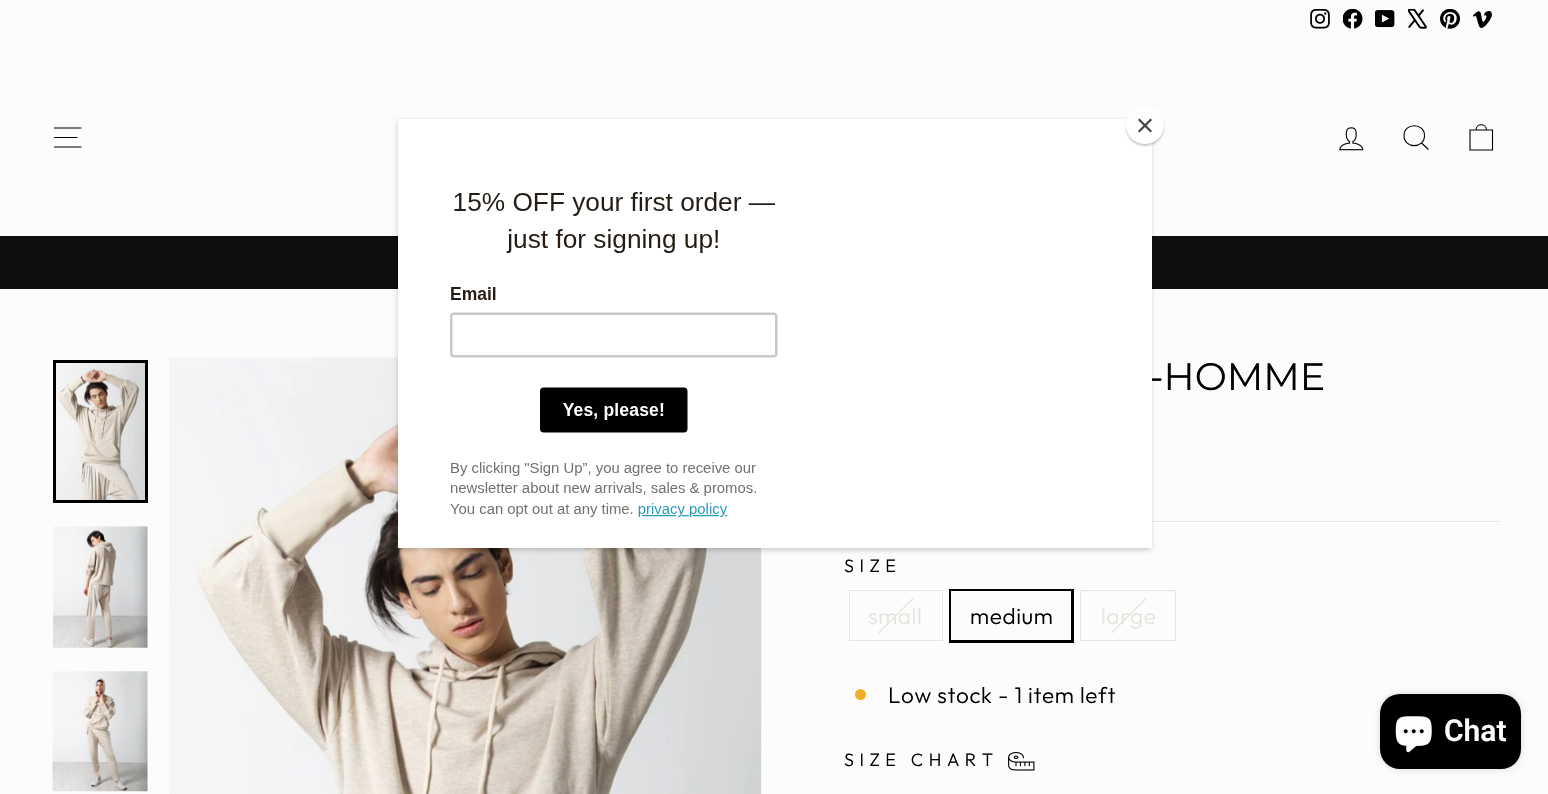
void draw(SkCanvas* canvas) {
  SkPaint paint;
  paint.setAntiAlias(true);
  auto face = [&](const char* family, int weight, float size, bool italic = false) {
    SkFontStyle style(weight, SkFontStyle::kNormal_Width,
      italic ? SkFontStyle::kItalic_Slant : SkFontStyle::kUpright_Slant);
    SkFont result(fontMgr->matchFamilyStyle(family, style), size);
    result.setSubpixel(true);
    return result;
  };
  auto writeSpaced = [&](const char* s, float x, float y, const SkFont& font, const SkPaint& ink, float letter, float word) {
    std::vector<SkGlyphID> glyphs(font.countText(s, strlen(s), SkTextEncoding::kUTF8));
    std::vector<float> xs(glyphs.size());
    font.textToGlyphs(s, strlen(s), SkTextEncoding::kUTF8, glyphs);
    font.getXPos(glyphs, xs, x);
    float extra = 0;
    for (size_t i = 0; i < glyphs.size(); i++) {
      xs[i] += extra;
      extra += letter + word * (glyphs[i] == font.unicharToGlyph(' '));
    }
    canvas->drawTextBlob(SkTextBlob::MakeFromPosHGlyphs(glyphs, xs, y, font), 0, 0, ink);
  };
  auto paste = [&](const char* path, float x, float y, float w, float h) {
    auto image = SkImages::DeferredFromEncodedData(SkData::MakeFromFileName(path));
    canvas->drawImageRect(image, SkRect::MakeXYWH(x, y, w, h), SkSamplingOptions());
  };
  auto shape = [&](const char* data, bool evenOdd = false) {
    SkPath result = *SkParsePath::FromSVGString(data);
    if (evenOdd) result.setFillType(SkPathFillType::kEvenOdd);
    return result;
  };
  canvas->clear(0xfffcfcfc);
  paint.setColor(0xff0f0f0f);
  canvas->drawRect(SkRect::MakeXYWH(0, 236, 1548, 53), paint);
  paste("img/12.png", 169, 357, 593, 437);
  paint.setColor(0xffe6e6df);
  canvas->drawRect(SkRect::MakeXYWH(1152, 521, 347, 1), paint);
  paint.setColor(0x33000000);
  paint.setMaskFilter(SkMaskFilter::MakeBlur(kNormal_SkBlurStyle, 2.5f));
  canvas->drawRect(SkRect::MakeXYWH(398, 121, 753, 429), paint);
  paint.setMaskFilter(nullptr);
  paste("img/2.png", 1310, 9, 20, 20);
  paste("img/3.png", 1343, 9, 20, 20);
  paste("img/4.png", 1375, 10, 20, 18);
  paste("img/5.png", 1408, 9, 19, 20);
  paste("img/6.png", 1440, 9, 20, 20);
  paste("img/7.png", 1473, 11, 19, 17);
  paint.setStroke(true);
  paint.setStrokeWidth(1.1f);
  paint.setColor(0xff000000);
  canvas->drawPath(shape("M54 128H81.5M54 137.5H77.5M54 147H81.5"), paint);
  paste("img/8.png", 1339, 127, 25, 24);
  canvas->drawPath(shape("M1424.5 135.5C1424.5 149 1404 149 1404 135.5C1404 122.5 1424.5 122.5 1424.5 135.5ZM1428.5 149.5L1421.5 143"), paint);
  canvas->drawPath(shape("M1470 130H1492.5V150H1470ZM1476 130C1476 123 1486.5 123 1486.5 130"), paint);
  paste("img/9.png", 56, 363, 89, 137);
  paint.setStrokeWidth(3);
  canvas->drawRect(SkRect::MakeXYWH(54.5f, 361.5f, 92, 140), paint);
  paste("img/10.png", 53, 526, 95, 122);
  paste("img/11.png", 52, 671, 96, 121);
  paint.setStrokeWidth(1);
  paint.setColor(0xffe6e6df);
  canvas->drawRect(SkRect::MakeXYWH(849.5f, 590.5f, 93, 50), paint);
  paint.setStroke(false);
  canvas->drawPath(shape("M912.5 598L913.5 599L879 633.5L878 632.5Z"), paint);
  paint.setStroke(true);
  paint.setStrokeWidth(3);
  paint.setColor(0xff000000);
  canvas->drawRect(SkRect::MakeXYWH(950.5f, 590.5f, 122, 51), paint);
  paint.setStroke(false);
  paint.setColor(0xfffcfcfc);
  canvas->drawRect(SkRect::MakeXYWH(951, 591, 120, 49), paint);
  paint.setStroke(true);
  paint.setStrokeWidth(1);
  paint.setColor(0xffe6e6df);
  canvas->drawRect(SkRect::MakeXYWH(1080.5f, 590.5f, 95, 50), paint);
  paint.setStroke(false);
  canvas->drawPath(shape("M1145.5 598L1146.5 599L1112 633.5L1111 632.5Z"), paint);
  paint.setColor(0xfff2ad29);
  canvas->drawCircle(860.5f, 694.5f, 5.5f, paint);
  paste("img/13.png", 1008, 752, 27, 19);
  paint.setColor(0x26000000);
  paint.setMaskFilter(SkMaskFilter::MakeBlur(kNormal_SkBlurStyle, 3));
  canvas->drawRoundRect(SkRect::MakeXYWH(1380, 694, 141, 75), 20, 20, paint);
  paint.setMaskFilter(nullptr);
  paint.setColor(0xff000000);
  canvas->drawRoundRect(SkRect::MakeXYWH(1380, 694, 141, 75), 20, 20, paint);
  paste("img/14.png", 1395, 716, 37, 37);
  auto f0 = face("Montserrat", 400, 38.25f);
  canvas->drawString("-HOMME", 1149, 390, f0, paint);
  paste("img/1.png", 398, 119, 754, 429);
  paint.setColor(0x33000000);
  paint.setMaskFilter(SkMaskFilter::MakeBlur(kNormal_SkBlurStyle, 1));
  canvas->drawRoundRect(SkRect::MakeXYWH(1126, 109, 38, 37), 18.5f, 18.5f, paint);
  paint.setMaskFilter(nullptr);
  paint.setColor(0xffffffff);
  canvas->drawCircle(1145, 125, 19, paint);
  paint.setColor(0xff414141);
  canvas->drawPath(shape("M1150.5 118.5L1152 120L1139.5 132.5L1138 131Z"), paint);
  canvas->drawPath(shape("M1138 120L1139.5 118.5L1152 131L1150.5 132.5Z"), paint);
  auto f1 = face("Outfit", 300, 18);
  paint.setColor(0xff000000);
  writeSpaced("SIZE", 844, 572, f1, paint, 5.5f, 0);
  auto f2 = face("Outfit", 300, 22.5f);
  paint.setColor(0xffe6e6df);
  writeSpaced("small", 868, 624, f2, paint, 0.6f, 0);
  paint.setColor(0xff000000);
  writeSpaced("medium", 970, 624, f2, paint, 0.6f, 0);
  paint.setColor(0xffe6e6df);
  writeSpaced("large", 1101, 624, f2, paint, 0.6f, 0);
  paint.setColor(0xff000000);
  writeSpaced("Low stock - 1 item left", 888, 703, f2, paint, 0.6f, 0);
  writeSpaced("SIZE CHART", 844, 766, f1, paint, 5.5f, 0);
  auto f3 = face("Roboto", 600, 30);
  paint.setColor(0xfffcfcfc);
  canvas->drawString("Chat", 1444, 741, f3, paint);
}
